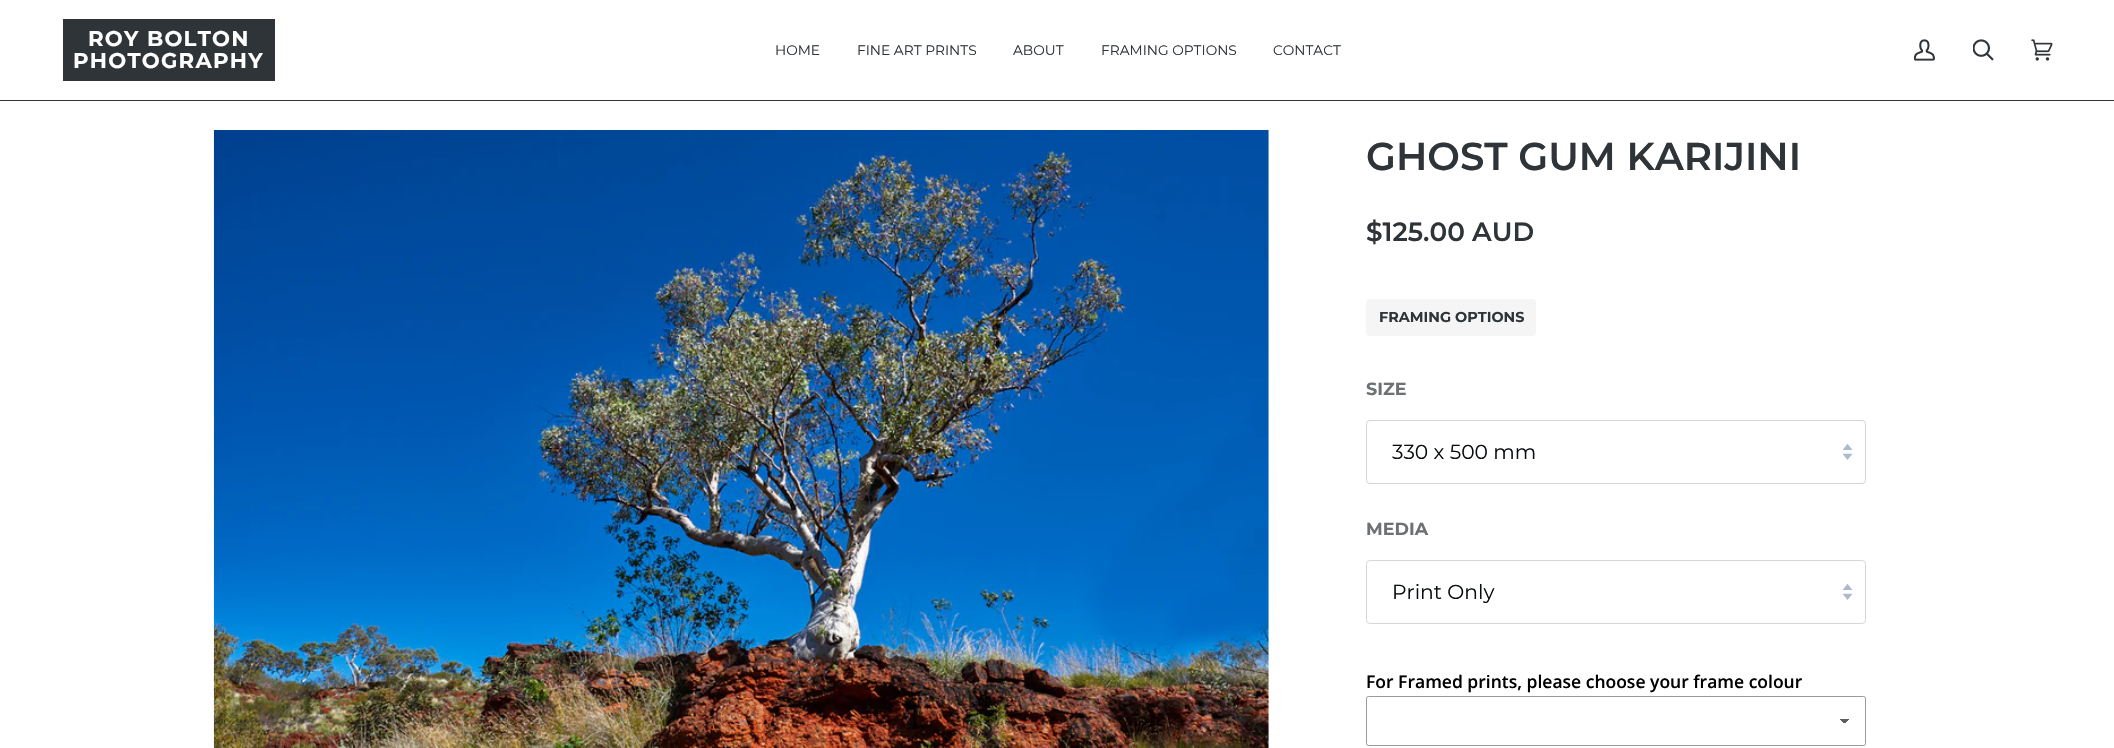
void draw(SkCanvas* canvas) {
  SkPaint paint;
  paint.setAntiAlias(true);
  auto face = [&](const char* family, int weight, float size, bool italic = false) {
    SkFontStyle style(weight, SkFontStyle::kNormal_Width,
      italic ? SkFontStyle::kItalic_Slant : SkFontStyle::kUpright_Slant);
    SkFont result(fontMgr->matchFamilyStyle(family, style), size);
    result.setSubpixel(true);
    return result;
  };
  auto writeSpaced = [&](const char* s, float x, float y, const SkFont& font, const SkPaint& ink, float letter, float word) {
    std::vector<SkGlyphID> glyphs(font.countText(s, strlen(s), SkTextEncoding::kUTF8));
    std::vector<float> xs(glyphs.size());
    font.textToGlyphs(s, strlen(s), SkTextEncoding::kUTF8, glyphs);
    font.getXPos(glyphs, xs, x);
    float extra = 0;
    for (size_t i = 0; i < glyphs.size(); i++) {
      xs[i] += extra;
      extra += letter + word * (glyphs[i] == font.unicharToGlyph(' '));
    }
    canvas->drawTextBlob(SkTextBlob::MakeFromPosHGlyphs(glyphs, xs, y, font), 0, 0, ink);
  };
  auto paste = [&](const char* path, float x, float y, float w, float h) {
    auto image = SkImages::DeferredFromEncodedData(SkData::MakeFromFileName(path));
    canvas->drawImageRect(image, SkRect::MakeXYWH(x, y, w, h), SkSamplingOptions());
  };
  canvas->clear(0xffffffff);
  paint.setColor(0xff2e3438);
  canvas->drawRect(SkRect::MakeXYWH(0, 100, 2114, 1), paint);
  canvas->drawRect(SkRect::MakeXYWH(63, 19, 212, 62), paint);
  paste("img/1.png", 1914, 39, 21, 22);
  paste("img/2.png", 1973, 39, 21, 22);
  paste("img/3.png", 2031, 39, 22, 22);
  paste("img/4.png", 213, 130, 1056, 618);
  paint.setColor(0xfff5f5f5);
  canvas->drawRoundRect(SkRect::MakeXYWH(1366, 299, 170, 37), 4, 4, paint);
  paint.setStroke(true);
  paint.setStrokeWidth(1);
  paint.setColor(0xffd5d6d7);
  canvas->drawRoundRect(SkRect::MakeXYWH(1366.5f, 420.5f, 499, 63), 3.5f, 3.5f, paint);
  paste("img/5.png", 1843, 444, 10, 16);
  canvas->drawRoundRect(SkRect::MakeXYWH(1366.5f, 560.5f, 499, 63), 3.5f, 3.5f, paint);
  paste("img/5.png", 1843, 584, 10, 16);
  paint.setColor(0xff9a9a9a);
  canvas->drawRoundRect(SkRect::MakeXYWH(1366.5f, 696.5f, 499, 49), 2, 2, paint);
  paint.setStroke(false);
  paint.setColor(0xffffffff);
  canvas->drawRoundRect(SkRect::MakeXYWH(1368, 698, 497, 47), 2.5f, 2.5f, paint);
  {
    const SkColor colors[] = {0xff5c5f62, 0xffffffff};
    const float stops[] = {0.5f, 0.5f};
    const SkPoint ends[] = {{1845, 718}, {1851, 724}};
    paint.setShader(SkGradientShader::MakeLinear(ends, colors, stops, 2, SkTileMode::kClamp));
    paint.setAlpha(255);
  }
  canvas->drawRect(SkRect::MakeXYWH(1845, 719, 6, 4), paint);
  {
    const SkColor colors[] = {0xffffffff, 0xff5c5f62};
    const float stops[] = {0.5f, 0.5f};
    const SkPoint ends[] = {{1839, 724}, {1845, 718}};
    paint.setShader(SkGradientShader::MakeLinear(ends, colors, stops, 2, SkTileMode::kClamp));
    paint.setAlpha(255);
  }
  canvas->drawRect(SkRect::MakeXYWH(1839, 719, 6, 4), paint);
  auto f0 = face("Montserrat", 700, 21.25f);
  paint.setShader(nullptr);
  paint.setColor(0xffffffff);
  writeSpaced("ROY BOLTON", 88, 46, f0, paint, 1.25f, 0);
  writeSpaced("PHOTOGRAPHY", 73, 68, f0, paint, 1.25f, 0);
  auto f1 = face("Montserrat", 400, 13.75f);
  paint.setColor(0xff2e3438);
  {
    const struct { const char* s; float x, y; } items[] = {
      {"HOME", 775, 55},
      {"FINE ART PRINTS", 857, 55},
      {"ABOUT", 1013, 55},
      {"FRAMING OPTIONS", 1101, 55},
      {"CONTACT", 1273, 55},
    };
    for (auto [s, x, y] : items) {
      canvas->drawString(s, x, y, f1, paint);
    }
  }
  auto f2 = face("Montserrat", 600, 38.75f);
  canvas->drawString("GHOST GUM KARIJINI", 1366, 170, f2, paint);
  auto f3 = face("Montserrat", 600, 26.25f);
  canvas->drawString("$125.00 AUD", 1366, 241, f3, paint);
  auto f4 = face("Montserrat", 700, 14.4f);
  canvas->drawString("FRAMING OPTIONS", 1379, 322, f4, paint);
  auto f5 = face("Montserrat", 700, 17.5f);
  paint.setColor(0xff6d7174);
  canvas->drawString("SIZE", 1366, 395, f5, paint);
  auto f6 = face("Montserrat", 400, 20.25f);
  paint.setColor(0xff0a0d0f);
  canvas->drawString("330 x 500 mm", 1392, 459, f6, paint);
  paint.setColor(0xff6d7174);
  canvas->drawString("MEDIA", 1366, 535, f5, paint);
  paint.setColor(0xff0a0d0f);
  canvas->drawString("Print Only", 1392, 599, f6, paint);
  auto f7 = face("Open Sans", 600, 17.5f);
  paint.setColor(0xff000000);
  canvas->drawString("For Framed prints, please choose your frame colour", 1366, 688, f7, paint);
}
